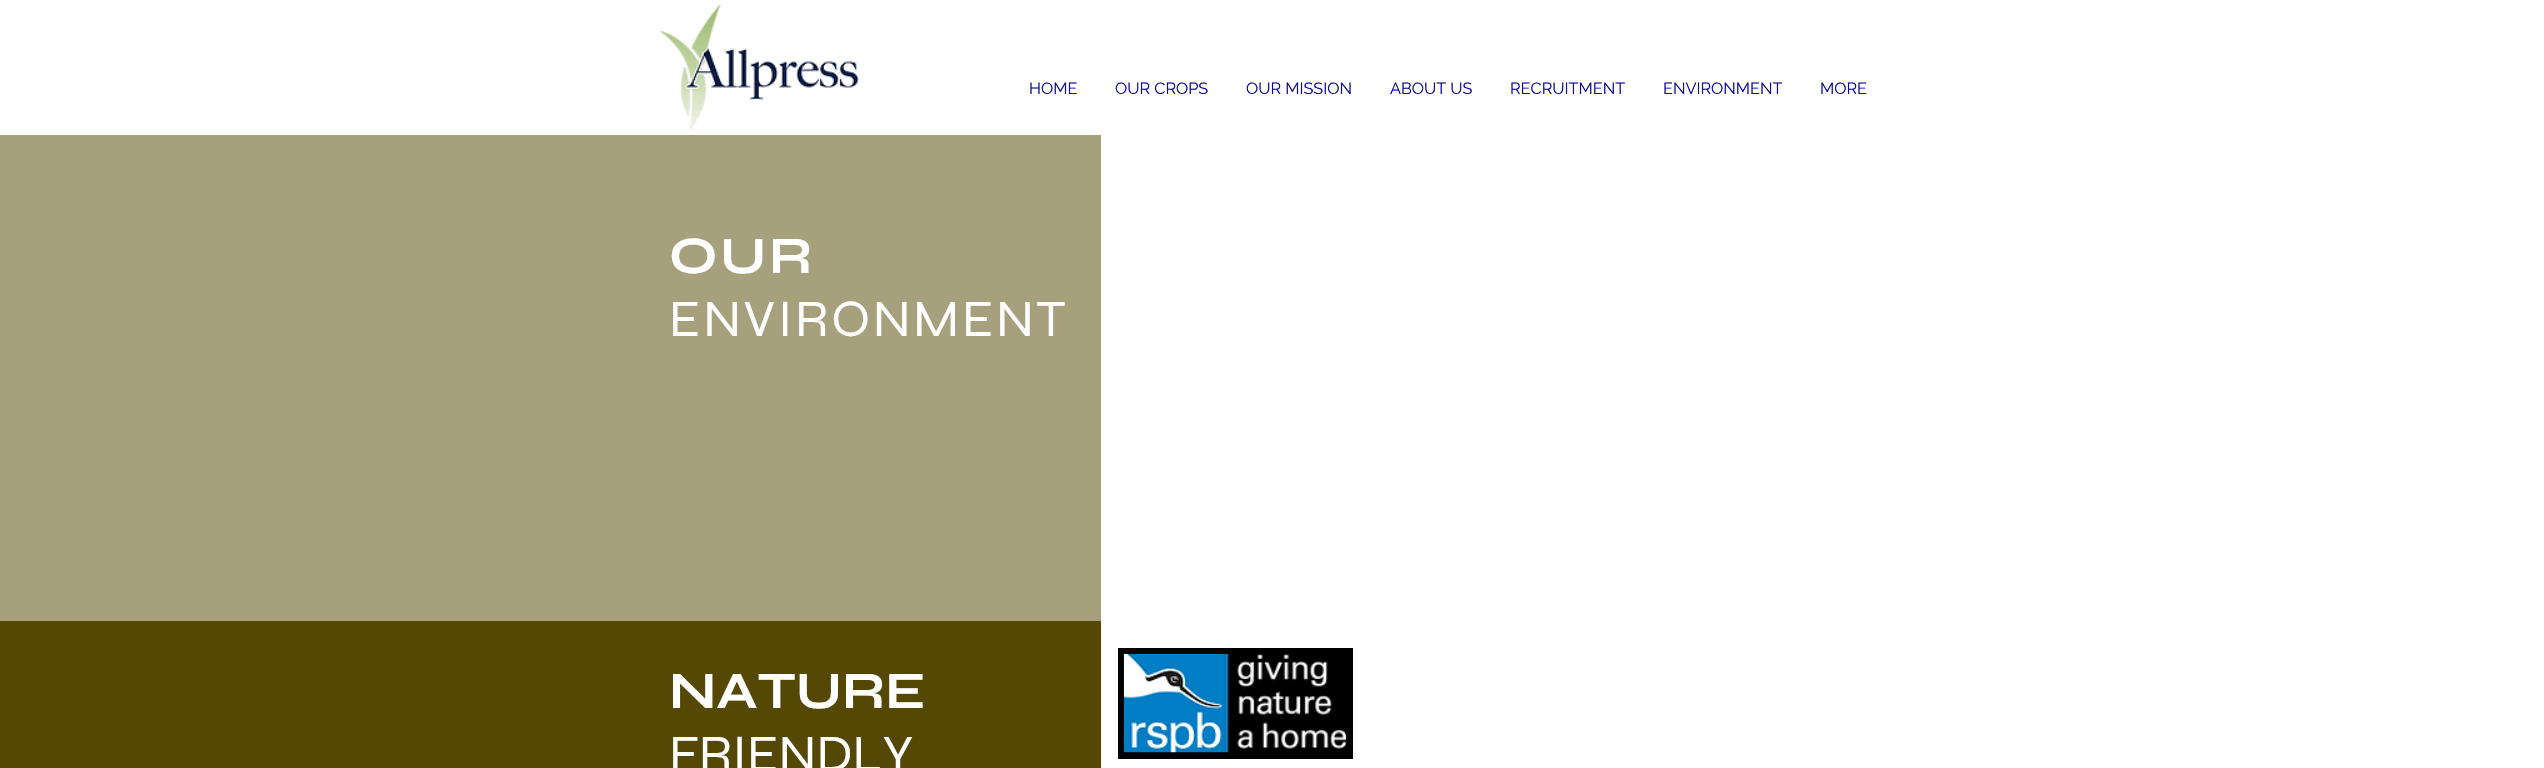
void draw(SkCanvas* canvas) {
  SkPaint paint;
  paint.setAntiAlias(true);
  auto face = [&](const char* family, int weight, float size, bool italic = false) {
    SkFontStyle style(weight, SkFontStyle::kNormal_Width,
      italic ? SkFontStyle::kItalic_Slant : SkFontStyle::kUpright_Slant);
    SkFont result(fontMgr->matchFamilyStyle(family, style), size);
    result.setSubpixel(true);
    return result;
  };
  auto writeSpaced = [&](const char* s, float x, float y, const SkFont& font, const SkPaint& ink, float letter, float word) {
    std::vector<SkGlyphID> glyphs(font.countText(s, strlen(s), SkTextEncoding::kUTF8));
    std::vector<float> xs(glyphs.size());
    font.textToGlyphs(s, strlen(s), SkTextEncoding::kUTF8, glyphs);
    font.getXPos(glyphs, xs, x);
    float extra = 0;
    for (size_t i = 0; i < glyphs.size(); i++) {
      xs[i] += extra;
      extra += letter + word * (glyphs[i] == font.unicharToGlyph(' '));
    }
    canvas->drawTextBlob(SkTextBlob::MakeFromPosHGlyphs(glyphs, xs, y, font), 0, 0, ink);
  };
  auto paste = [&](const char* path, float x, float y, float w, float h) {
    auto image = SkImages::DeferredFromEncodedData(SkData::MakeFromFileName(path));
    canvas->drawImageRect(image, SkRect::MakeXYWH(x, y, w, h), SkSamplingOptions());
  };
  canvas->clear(0xffffffff);
  paste("img/1.png", 660, 5, 199, 124);
  {
    const struct { float x, y, w, h; SkColor color; } items[] = {
      {0, 135, 1101, 486, 0xffa7a07d},
      {0, 621, 1101, 147, 0xff544804},
      {1118, 648, 235, 111, 0xff000000},
    };
    for (auto [x, y, w, h, color] : items) {
      paint.setColor(color);
      canvas->drawRect(SkRect::MakeXYWH(x, y, w, h), paint);
    }
  }
  paste("img/2.png", 1123, 653, 224, 100);
  auto f0 = face("Raleway", 400, 16.25f);
  paint.setColor(0xff0f09a1);
  {
    const struct { const char* s; float x, y; } items[] = {
      {"HOME", 1029, 94},
      {"OUR CROPS", 1115, 94},
      {"OUR MISSION", 1246, 94},
      {"ABOUT US", 1390, 94},
      {"RECRUITMENT", 1510, 94},
      {"ENVIRONMENT", 1663, 94},
      {"MORE", 1820, 94},
    };
    for (auto [s, x, y] : items) {
      canvas->drawString(s, x, y, f0, paint);
    }
  }
  auto f1 = face("Syne", 700, 52.5f);
  paint.setColor(0xffffffff);
  writeSpaced("OUR", 669, 273, f1, paint, 2.6f, 0);
  auto f2 = face("Syne", 400, 52.5f);
  writeSpaced("ENVIRONMENT", 669, 336, f2, paint, 2.6f, 0);
  canvas->drawString("NATURE", 669, 708, f1, paint);
  canvas->drawString("FRIENDLY", 669, 771, f2, paint);
}
